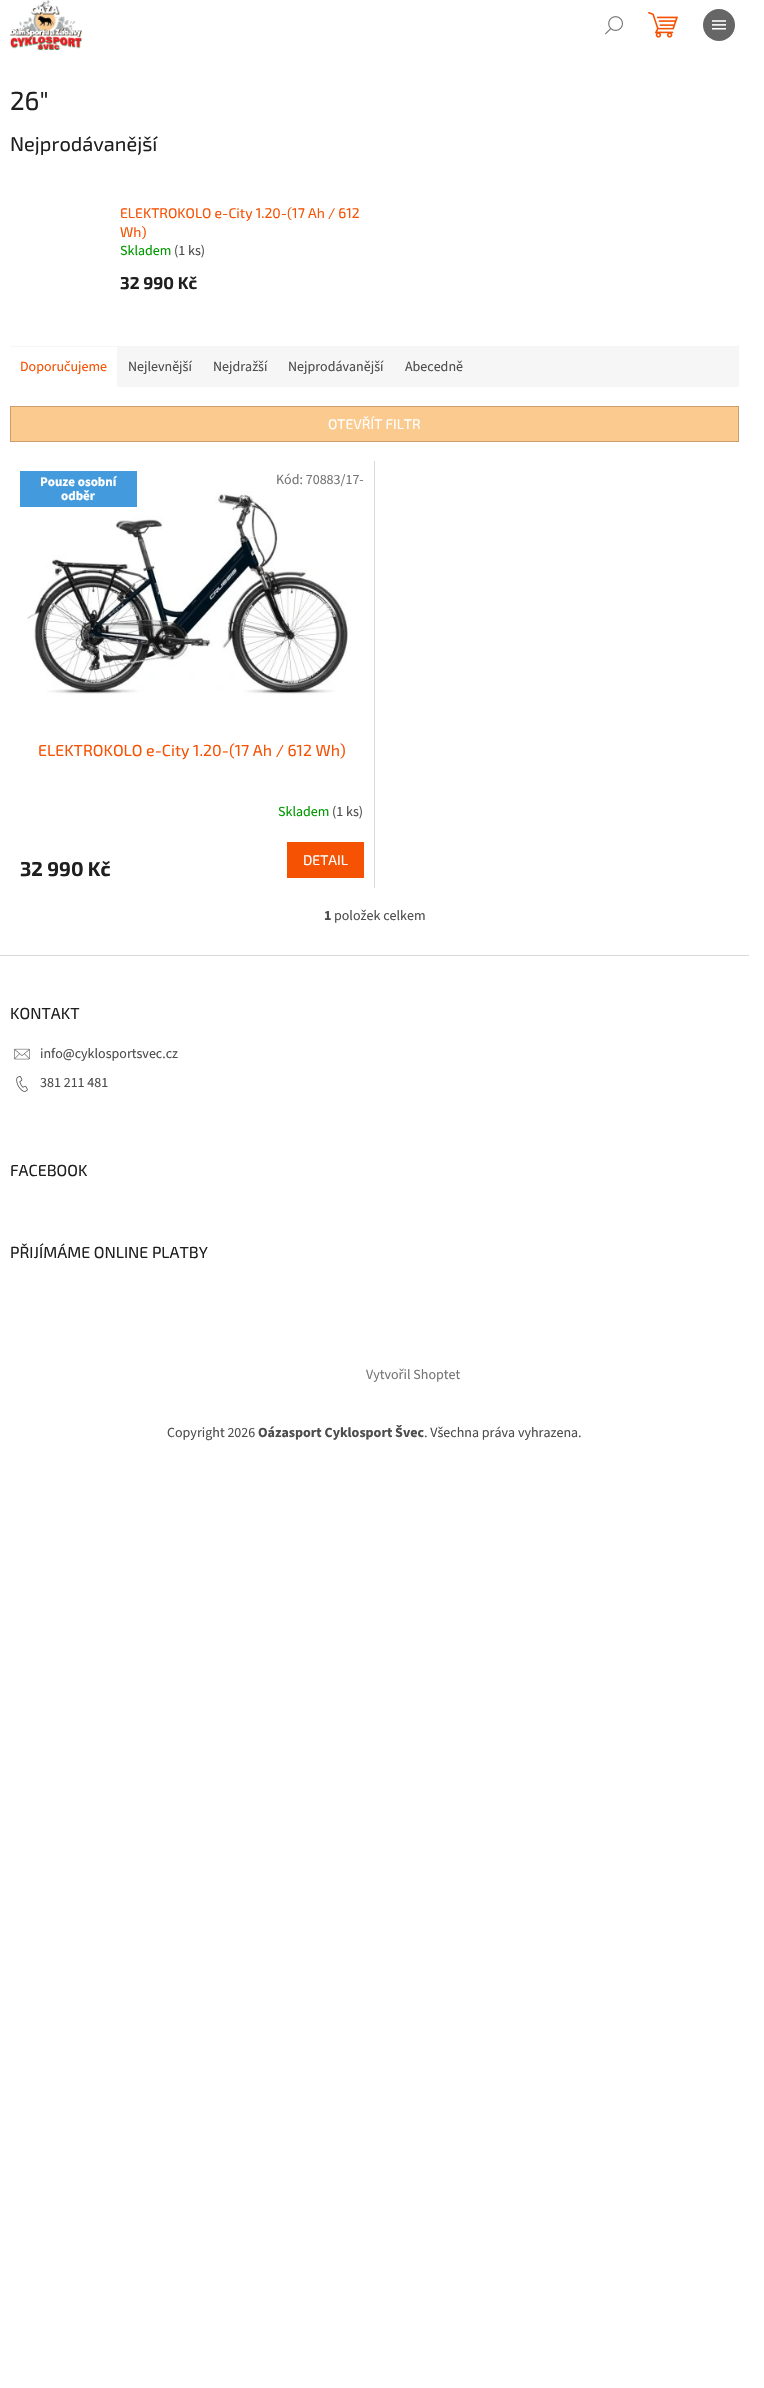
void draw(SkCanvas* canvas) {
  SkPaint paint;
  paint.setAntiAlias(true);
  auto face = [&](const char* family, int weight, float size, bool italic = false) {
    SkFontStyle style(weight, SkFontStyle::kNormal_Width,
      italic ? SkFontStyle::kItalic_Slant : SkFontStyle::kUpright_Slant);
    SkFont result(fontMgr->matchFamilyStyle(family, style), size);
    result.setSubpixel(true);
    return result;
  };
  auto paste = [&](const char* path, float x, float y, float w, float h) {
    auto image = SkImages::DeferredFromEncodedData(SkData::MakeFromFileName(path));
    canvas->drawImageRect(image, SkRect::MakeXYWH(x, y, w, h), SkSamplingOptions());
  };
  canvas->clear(0xffffffff);
  paste("img/1.png", 10, 0, 72, 50);
  paste("img/2.png", 648, 12, 30, 26);
  paste("img/3.png", 605, 16, 18, 19);
  paint.setColor(0xff666666);
  canvas->drawCircle(719, 25, 16, paint);
  paste("img/4.png", 712, 20, 14, 10);
  paint.setColor(0xfff6f6f6);
  canvas->drawRect(SkRect::MakeXYWH(10, 346, 729, 41), paint);
  paint.setColor(0xffffffff);
  canvas->drawRect(SkRect::MakeXYWH(10, 347, 107, 40), paint);
  paint.setColor(0xfffaca8e);
  canvas->drawRect(SkRect::MakeXYWH(10.5f, 406.5f, 728, 35), paint);
  paint.setStroke(true);
  paint.setStrokeWidth(1);
  paint.setColor(0xffce9e6a);
  canvas->drawRect(SkRect::MakeXYWH(10.5f, 406.5f, 728, 35), paint);
  paint.setStroke(false);
  paint.setColor(0xffdadada);
  canvas->drawRect(SkRect::MakeXYWH(374, 461, 1, 427), paint);
  paste("img/5.png", 27, 491, 324, 204);
  {
    const struct { float x, y, w, h; SkColor color; } items[] = {
      {20, 471, 117, 36, 0xff439adc},
      {287, 842, 77, 36, 0xfff55204},
      {0, 955, 749, 1, 0xffdadada},
    };
    for (auto [x, y, w, h, color] : items) {
      paint.setColor(color);
      canvas->drawRect(SkRect::MakeXYWH(x, y, w, h), paint);
    }
  }
  paste("img/6.png", 14, 1048, 16, 12);
  paste("img/7.png", 16, 1076, 12, 16);
  auto f0 = face("Exo 2", 400, 26);
  paint.setColor(0xff1f1f1f);
  canvas->drawString("26\"", 10, 110, f0, paint);
  auto f1 = face("Exo 2", 400, 20);
  canvas->drawString("Nejprodávanější", 10, 151, f1, paint);
  auto f2 = face("Exo 2", 400, 14);
  paint.setColor(0xfff55204);
  canvas->drawString("ELEKTROKOLO e-City 1.20-(17 Ah / 612", 120, 218, f2, paint);
  canvas->drawString("Wh)", 120, 237, f2, paint);
  auto f3 = face("Source Sans 3", 400, 14);
  paint.setColor(0xff009901);
  canvas->drawString("Skladem", 120, 255, f3, paint);
  paint.setColor(0xff4d4d4d);
  canvas->drawString("(1 ks)", 174, 255, f3, paint);
  auto f4 = face("Exo 2", 700, 17);
  paint.setColor(0xff1f1f1f);
  canvas->drawString("32 990 Kč", 120, 289, f4, paint);
  paint.setColor(0xfff55204);
  canvas->drawString("Doporučujeme", 20, 371, f3, paint);
  paint.setColor(0xff4d4d4d);
  {
    const struct { const char* s; float x, y; } items[] = {
      {"Nejlevnější", 128, 371},
      {"Nejdražší", 213, 371},
      {"Nejprodávanější", 288, 371},
      {"Abecedně", 405, 371},
    };
    for (auto [s, x, y] : items) {
      canvas->drawString(s, x, y, f3, paint);
    }
  }
  paint.setColor(0xffffffff);
  canvas->drawString("OTEVŘÍT FILTR", 328, 429, f2, paint);
  auto f5 = face("Source Sans 3", 700, 13);
  canvas->drawString("Pouze osobní", 40, 486, f5, paint);
  canvas->drawString("odběr", 61, 500, f5, paint);
  paint.setColor(0xff767676);
  canvas->drawString("Kód: 70883/17-", 276, 484, f3, paint);
  auto f6 = face("Exo 2", 400, 16);
  paint.setColor(0xfff55204);
  canvas->drawString("ELEKTROKOLO e-City 1.20-(17 Ah / 612 Wh)", 38, 756, f6, paint);
  paint.setColor(0xff009901);
  canvas->drawString("Skladem", 278, 816, f3, paint);
  paint.setColor(0xff4d4d4d);
  canvas->drawString("(1 ks)", 332, 816, f3, paint);
  auto f7 = face("Exo 2", 700, 20);
  paint.setColor(0xff1f1f1f);
  canvas->drawString("32 990 Kč", 20, 876, f7, paint);
  paint.setColor(0xffffffff);
  canvas->drawString("DETAIL", 303, 865, f2, paint);
  auto f8 = face("Source Sans 3", 700, 14);
  paint.setColor(0xff4d4d4d);
  canvas->drawString("1", 324, 920, f8, paint);
  canvas->drawString("položek celkem", 334, 920, f3, paint);
  paint.setColor(0xff1f1f1f);
  canvas->drawString("KONTAKT", 10, 1019, f6, paint);
  paint.setColor(0xff4d4d4d);
  canvas->drawString("info@cyklosportsvec.cz", 40, 1058, f3, paint);
  canvas->drawString("381 211 481", 40, 1087, f3, paint);
  paint.setColor(0xff1f1f1f);
  canvas->drawString("FACEBOOK", 10, 1176, f6, paint);
  canvas->drawString("PŘIJÍMÁME ONLINE PLATBY", 10, 1258, f6, paint);
  paint.setColor(0xff767676);
  canvas->drawString("Vytvořil Shoptet", 366, 1379, f3, paint);
  paint.setColor(0xff4d4d4d);
  canvas->drawString("Copyright 2026", 167, 1437, f3, paint);
  canvas->drawString("Oázasport Cyklosport Švec", 258, 1437, f8, paint);
  canvas->drawString(". Všechna práva vyhrazena.", 424, 1437, f3, paint);
}
